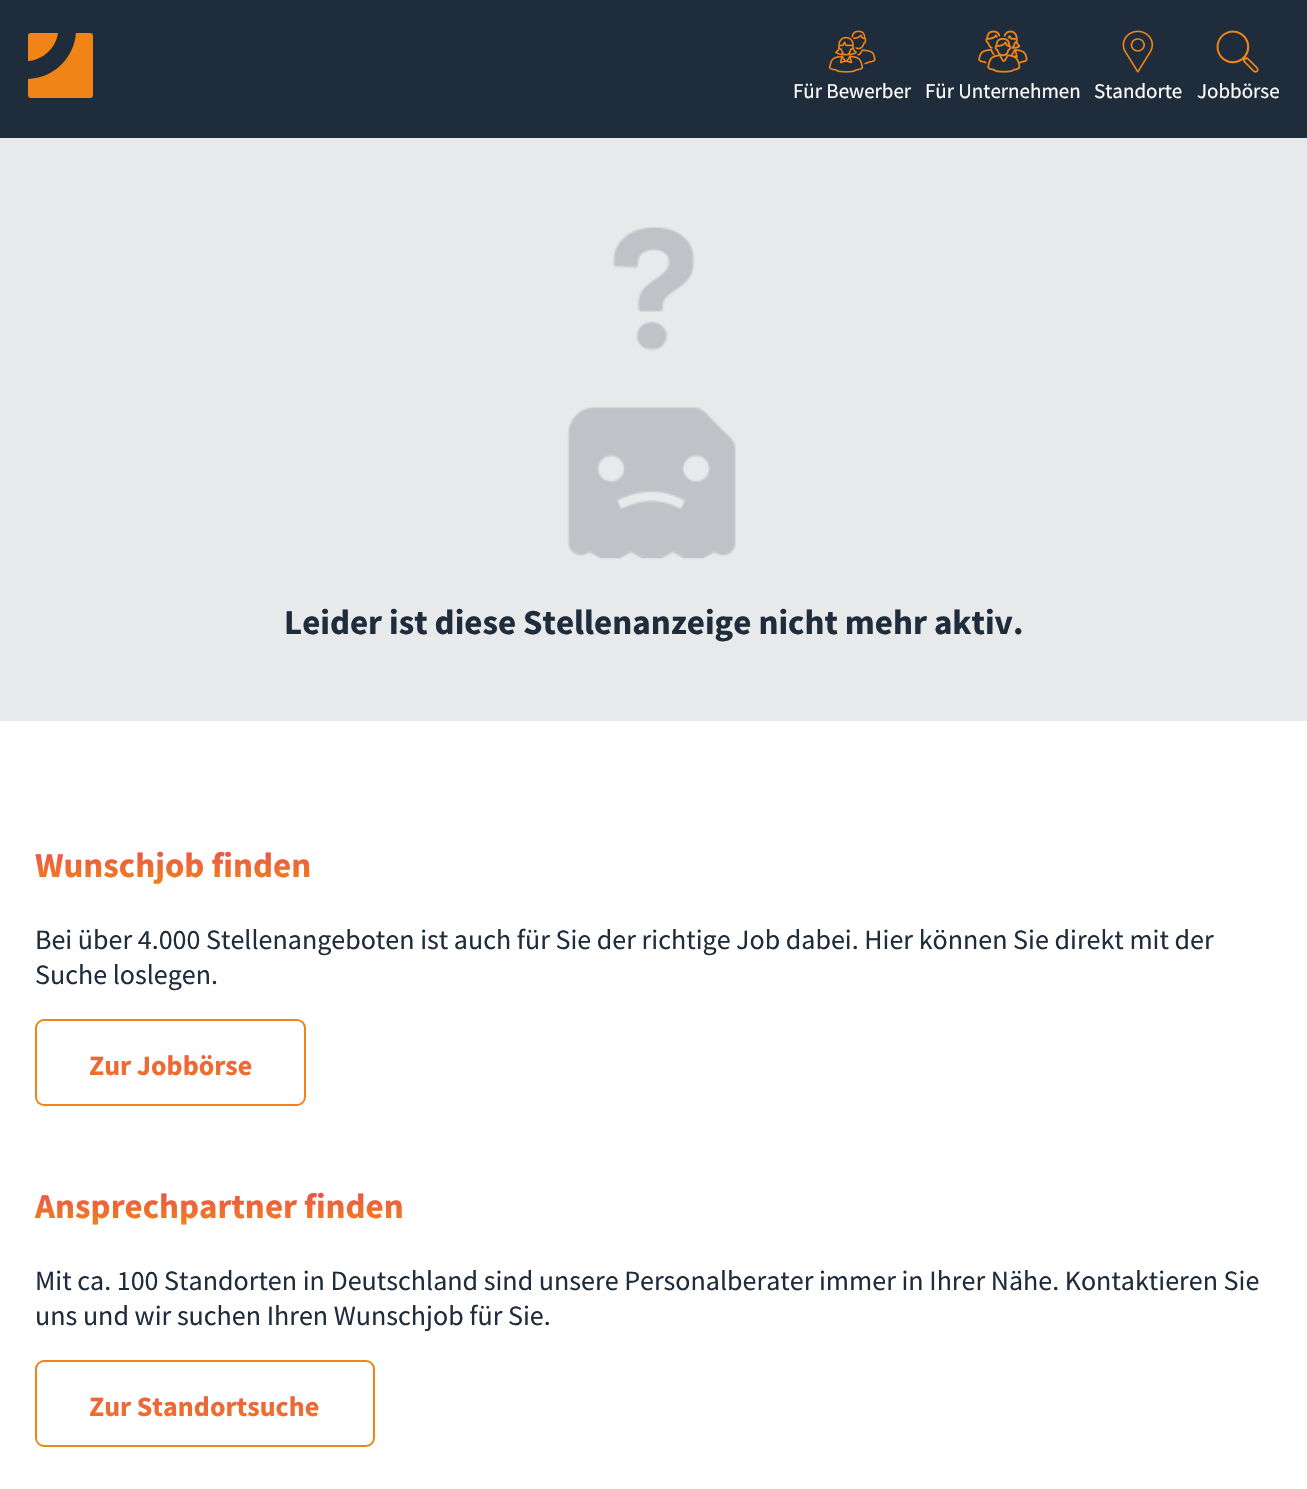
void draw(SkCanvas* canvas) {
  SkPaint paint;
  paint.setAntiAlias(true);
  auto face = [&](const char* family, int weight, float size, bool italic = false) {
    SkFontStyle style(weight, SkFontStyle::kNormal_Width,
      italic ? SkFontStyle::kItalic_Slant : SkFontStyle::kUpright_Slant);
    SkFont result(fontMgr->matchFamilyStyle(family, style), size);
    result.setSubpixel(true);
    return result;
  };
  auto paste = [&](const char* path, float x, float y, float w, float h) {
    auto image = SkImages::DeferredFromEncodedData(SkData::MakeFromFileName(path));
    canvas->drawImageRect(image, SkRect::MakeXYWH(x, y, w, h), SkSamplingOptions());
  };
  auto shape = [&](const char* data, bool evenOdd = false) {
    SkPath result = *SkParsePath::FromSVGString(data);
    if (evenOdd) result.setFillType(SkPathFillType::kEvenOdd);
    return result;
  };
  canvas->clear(0xffffffff);
  paint.setColor(0xff1f2c3c);
  canvas->drawRect(SkRect::MakeXYWH(0, 0, 1307, 138), paint);
  paint.setColor(0xfff18416);
  canvas->drawPath(shape("M90 33C92 33 93 34 93 36V95C93 97 92 98 90 98H31C29 98 28 97 28 95V79C54 78 74 58 76 33ZM58 33C56 48 43 60 28 61V36C28 34 29 33 31 33Z"), paint);
  paste("img/1.png", 828, 30, 48, 43);
  paste("img/2.png", 978, 30, 50, 43);
  paste("img/3.png", 1122, 30, 32, 43);
  paste("img/4.png", 1216, 30, 43, 43);
  paint.setColor(0xffe8e9eb);
  canvas->drawRect(SkRect::MakeXYWH(0, 138, 1307, 583), paint);
  paste("img/5.png", 567, 227, 169, 332);
  paint.setStroke(true);
  paint.setStrokeWidth(2);
  paint.setColor(0xfff18416);
  canvas->drawRoundRect(SkRect::MakeXYWH(36, 1020, 269, 85), 8, 8, paint);
  canvas->drawRoundRect(SkRect::MakeXYWH(36, 1361, 338, 85), 8, 8, paint);
  auto f0 = face("Source Sans Pro", 400, 21);
  paint.setStroke(false);
  paint.setColor(0xffffffff);
  {
    const struct { const char* s; float x, y; } items[] = {
      {"Für Bewerber", 793, 98},
      {"Für Unternehmen", 925, 98},
      {"Standorte", 1094, 98},
      {"Jobbörse", 1197, 98},
    };
    for (auto [s, x, y] : items) {
      canvas->drawString(s, x, y, f0, paint);
    }
  }
  auto f1 = face("Source Sans Pro", 700, 35);
  paint.setColor(0xff1f2c3c);
  canvas->drawString("Leider ist diese Stellenanzeige nicht mehr aktiv.", 284, 634, f1, paint);
  {
    const SkColor colors[] = {0xffe94b56, 0xfff18416};
    const float stops[] = {0, 1};
    const SkPoint ends[] = {{654, 843}, {654, 886}};
    paint.setShader(SkGradientShader::MakeLinear(ends, colors, stops, 2, SkTileMode::kClamp));
    paint.setAlpha(255);
  }
  canvas->drawString("Wunschjob finden", 35, 877, f1, paint);
  auto f2 = face("Source Sans Pro", 400, 28);
  paint.setShader(nullptr);
  paint.setColor(0xff1f2c3c);
  canvas->drawString("Bei über 4.000 Stellenangeboten ist auch für Sie der richtige Job dabei. Hier können Sie direkt mit der", 35, 949, f2, paint);
  canvas->drawString("Suche loslegen.", 35, 984, f2, paint);
  auto f3 = face("Source Sans Pro", 700, 28);
  {
    const SkColor colors[] = {0xffe94b56, 0xfff18416};
    const float stops[] = {0, 1};
    const SkPoint ends[] = {{171, 1019}, {171, 1106}};
    paint.setShader(SkGradientShader::MakeLinear(ends, colors, stops, 2, SkTileMode::kClamp));
    paint.setAlpha(255);
  }
  canvas->drawString("Zur Jobbörse", 89, 1075, f3, paint);
  {
    const SkColor colors[] = {0xffe94b56, 0xfff18416};
    const float stops[] = {0, 1};
    const SkPoint ends[] = {{654, 1185}, {654, 1227}};
    paint.setShader(SkGradientShader::MakeLinear(ends, colors, stops, 2, SkTileMode::kClamp));
    paint.setAlpha(255);
  }
  canvas->drawString("Ansprechpartner finden", 35, 1218, f1, paint);
  paint.setShader(nullptr);
  paint.setColor(0xff1f2c3c);
  canvas->drawString("Mit ca. 100 Standorten in Deutschland sind unsere Personalberater immer in Ihrer Nähe. Kontaktieren Sie", 35, 1290, f2, paint);
  canvas->drawString("uns und wir suchen Ihren Wunschjob für Sie.", 35, 1325, f2, paint);
  {
    const SkColor colors[] = {0xffe94b56, 0xfff18416};
    const float stops[] = {0, 1};
    const SkPoint ends[] = {{204, 1360}, {204, 1447}};
    paint.setShader(SkGradientShader::MakeLinear(ends, colors, stops, 2, SkTileMode::kClamp));
    paint.setAlpha(255);
  }
  canvas->drawString("Zur Standortsuche", 89, 1416, f3, paint);
}
